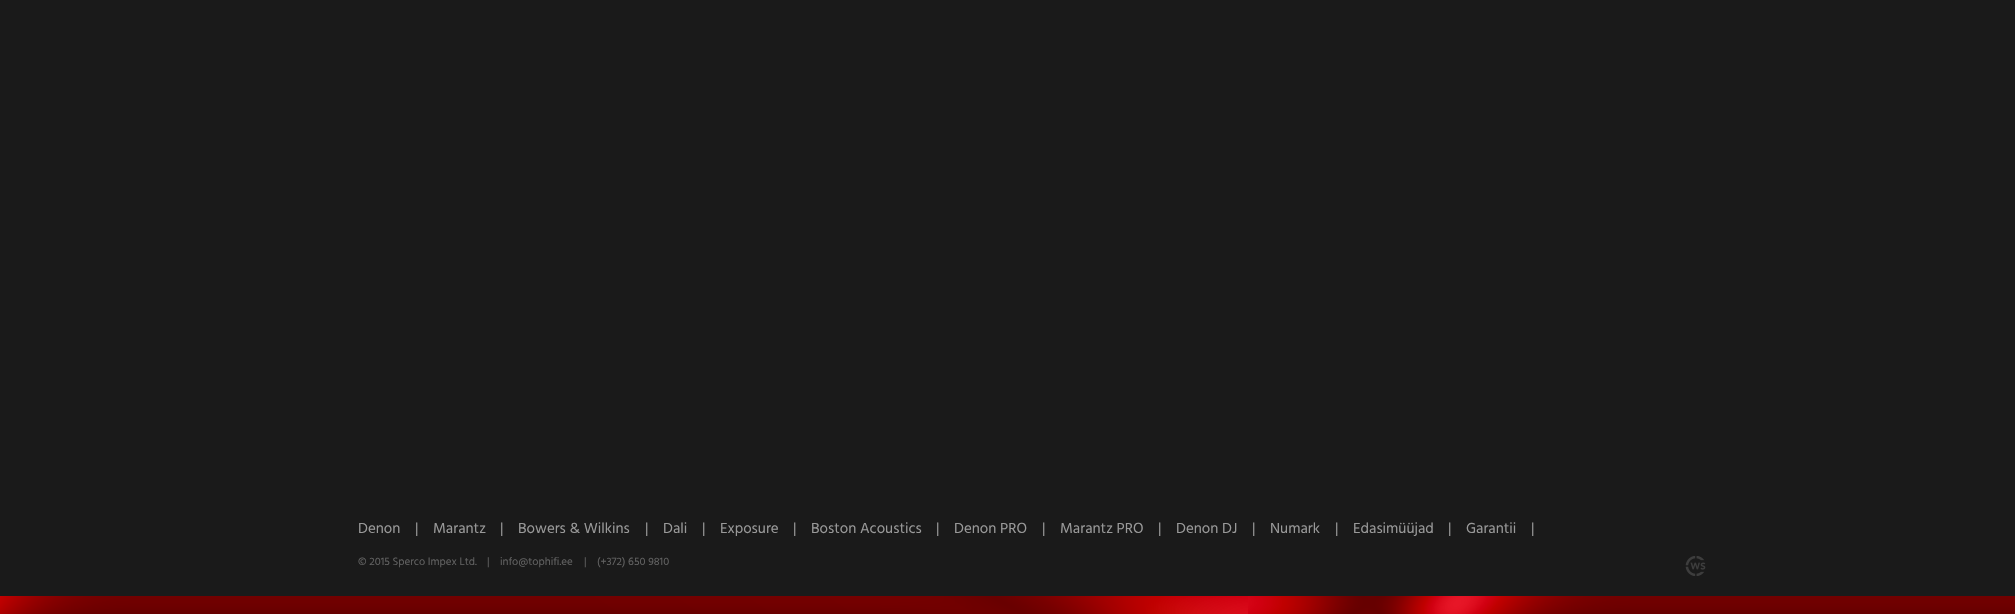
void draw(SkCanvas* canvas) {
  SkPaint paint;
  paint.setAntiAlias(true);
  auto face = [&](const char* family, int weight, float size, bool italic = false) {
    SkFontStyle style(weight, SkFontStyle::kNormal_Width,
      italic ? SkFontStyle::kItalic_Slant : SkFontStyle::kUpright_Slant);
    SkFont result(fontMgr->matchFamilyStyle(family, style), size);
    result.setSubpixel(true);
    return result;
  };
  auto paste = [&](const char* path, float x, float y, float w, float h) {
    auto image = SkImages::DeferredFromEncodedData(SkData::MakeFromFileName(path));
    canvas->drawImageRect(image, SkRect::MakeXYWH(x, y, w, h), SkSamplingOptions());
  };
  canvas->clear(0xff1a1a1a);
  paste("img/1.png", 1685, 556, 21, 20);
  paste("img/2.png", 0, 596, 2015, 18);
  auto f0 = face("Hind", 400, 15);
  paint.setColor(0xff999999);
  {
    const struct { const char* s; float x, y; } items[] = {
      {"Denon", 358, 533},
      {"|", 415, 533},
      {"Marantz", 433, 533},
      {"|", 500, 533},
      {"Bowers & Wilkins", 518, 533},
      {"|", 645, 533},
      {"Dali", 663, 533},
      {"|", 702, 533},
      {"Exposure", 720, 533},
      {"|", 793, 533},
      {"Boston Acoustics", 811, 533},
      {"|", 936, 533},
      {"Denon PRO", 954, 533},
      {"|", 1042, 533},
      {"Marantz PRO", 1060, 533},
      {"|", 1158, 533},
      {"Denon DJ", 1176, 533},
      {"|", 1252, 533},
      {"Numark", 1270, 533},
      {"|", 1335, 533},
      {"Edasimüüjad", 1353, 533},
      {"|", 1448, 533},
      {"Garantii", 1466, 533},
      {"|", 1531, 533},
    };
    for (auto [s, x, y] : items) {
      canvas->drawString(s, x, y, f0, paint);
    }
  }
  auto f1 = face("Hind", 400, 11);
  paint.setColor(0xff616161);
  {
    const struct { const char* s; float x, y; } items[] = {
      {"© 2015 Sperco Impex Ltd.", 358, 565},
      {"|", 487, 565},
      {"info@tophifi.ee", 500, 565},
      {"|", 584, 565},
      {"(+372) 650 9810", 597, 565},
    };
    for (auto [s, x, y] : items) {
      canvas->drawString(s, x, y, f1, paint);
    }
  }
}
